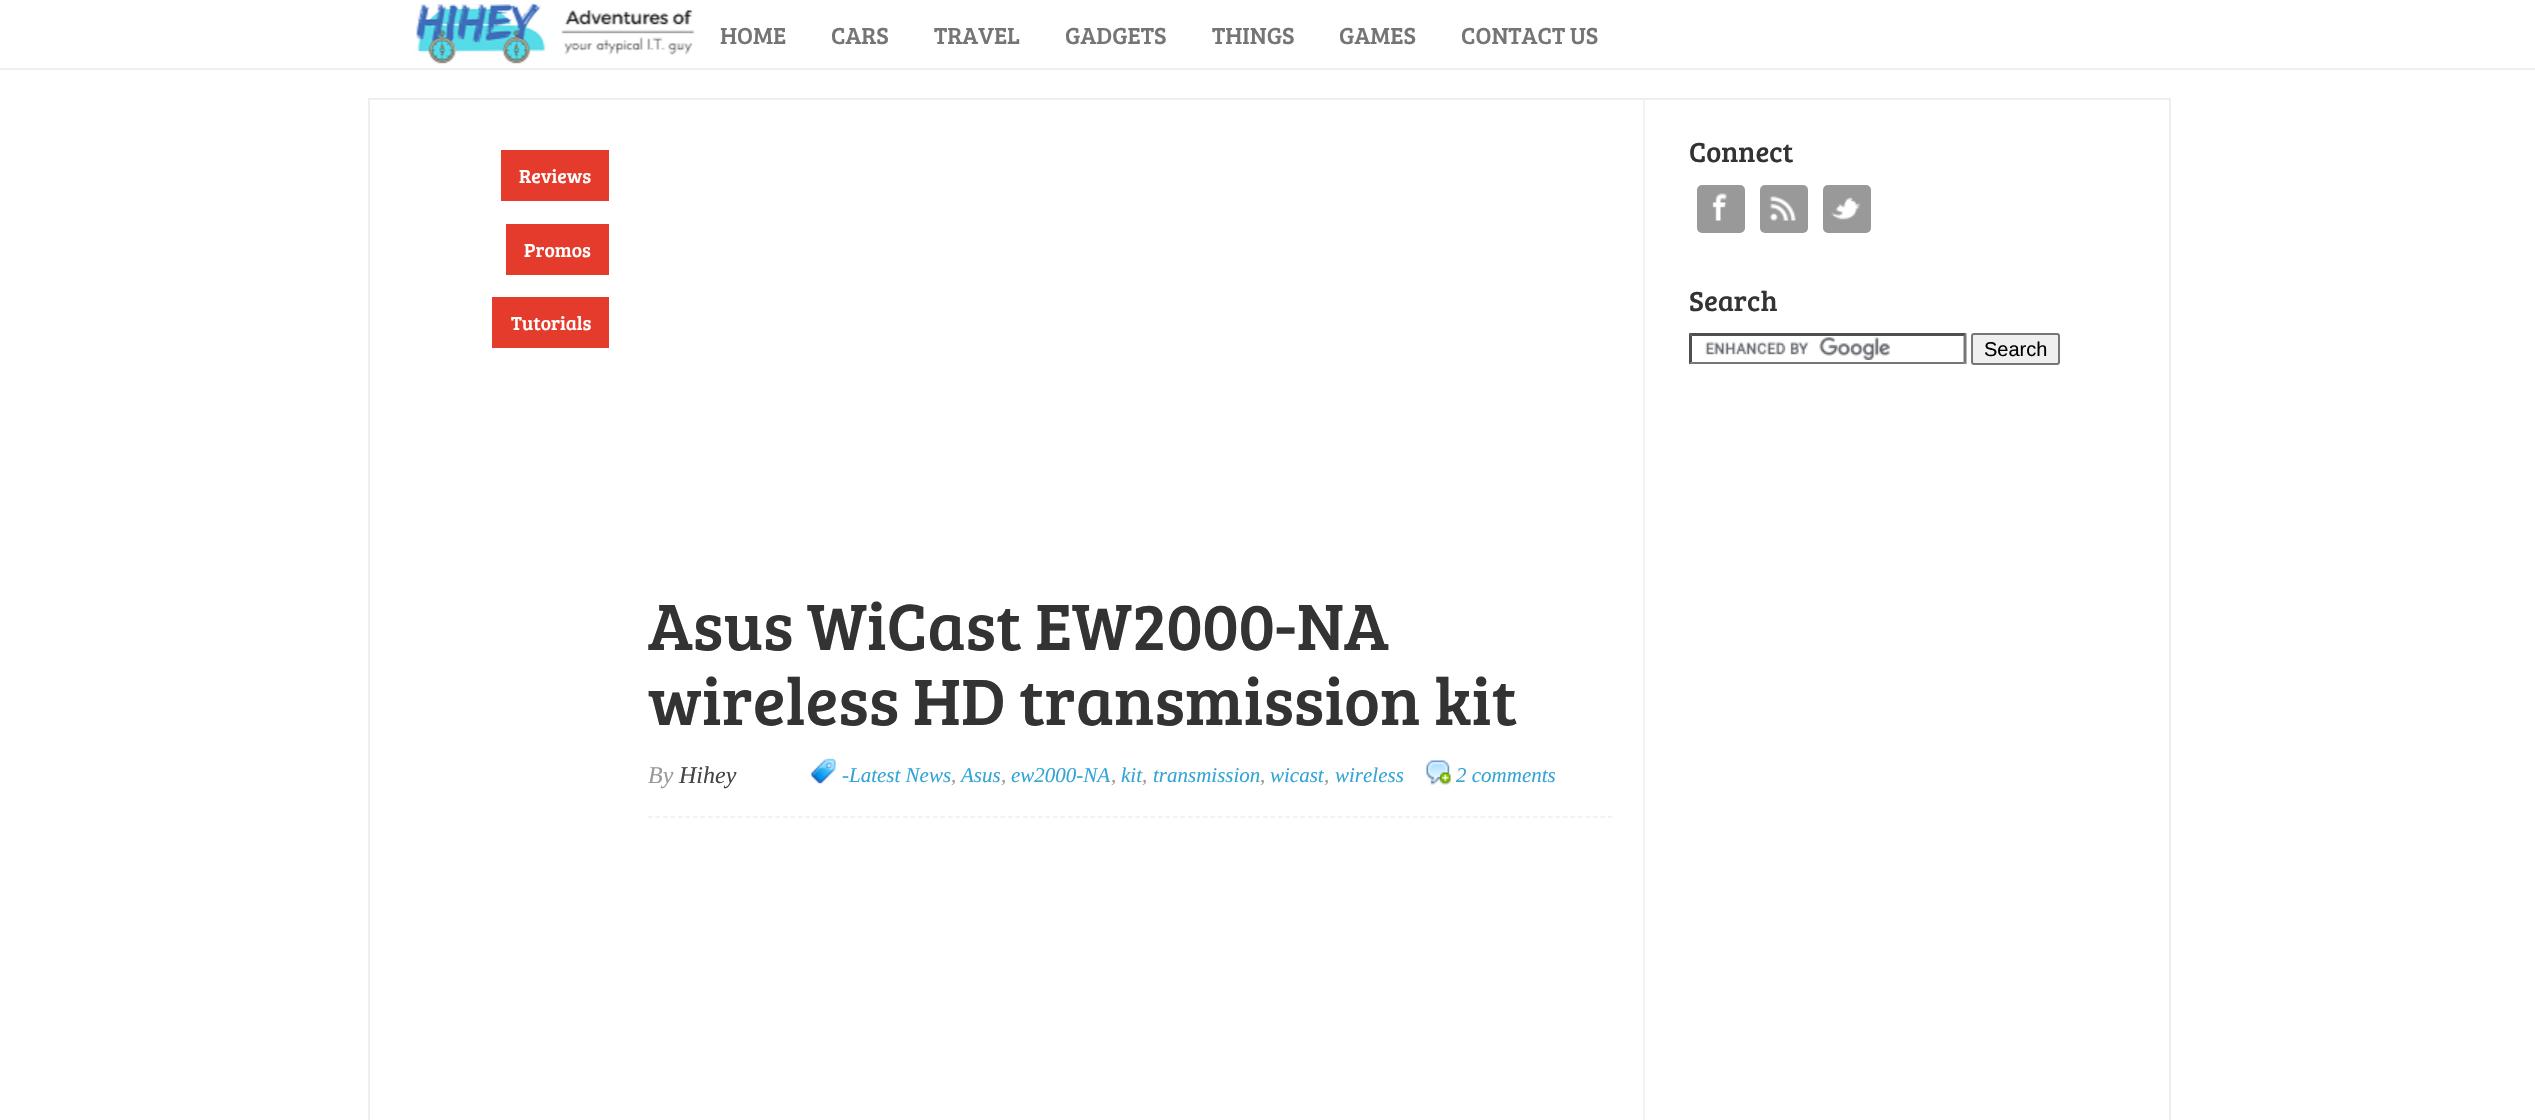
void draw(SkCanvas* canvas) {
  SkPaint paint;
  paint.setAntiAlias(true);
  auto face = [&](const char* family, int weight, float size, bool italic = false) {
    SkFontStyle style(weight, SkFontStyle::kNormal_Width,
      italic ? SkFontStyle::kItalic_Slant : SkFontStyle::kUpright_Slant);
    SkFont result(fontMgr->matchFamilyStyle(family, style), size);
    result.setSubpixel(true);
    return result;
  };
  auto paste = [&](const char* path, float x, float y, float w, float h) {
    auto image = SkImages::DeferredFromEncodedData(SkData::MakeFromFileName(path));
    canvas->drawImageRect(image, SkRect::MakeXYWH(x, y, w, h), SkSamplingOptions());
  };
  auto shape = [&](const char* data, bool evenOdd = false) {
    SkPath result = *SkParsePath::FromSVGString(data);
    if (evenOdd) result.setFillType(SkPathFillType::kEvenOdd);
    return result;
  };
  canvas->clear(0xffffffff);
  paint.setColor(0xfff0f0f0);
  canvas->drawRect(SkRect::MakeXYWH(0, 68, 2535, 2), paint);
  paste("img/1.png", 413, 3, 282, 61);
  paint.setStroke(true);
  paint.setStrokeWidth(2);
  paint.setColor(0xffeeeeee);
  canvas->drawRect(SkRect::MakeXYWH(369, 99, 1801, 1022), paint);
  paint.setStroke(false);
  {
    const struct { float x, y, w, h; SkColor color; } items[] = {
      {501, 150, 108, 51, 0xffe53b2c},
      {506, 224, 103, 51, 0xffe53b2c},
      {492, 297, 117, 51, 0xffe53b2c},
      {1643, 99, 2, 1021, 0xfff2f2f2},
    };
    for (auto [x, y, w, h, color] : items) {
      paint.setColor(color);
      canvas->drawRect(SkRect::MakeXYWH(x, y, w, h), paint);
    }
  }
  paint.setStroke(true);
  paint.setStrokeWidth(1.5f);
  paint.setColor(0xffeeeeee);
  paint.setPathEffect(SkDashPathEffect::Make({{4.5f, 3}}, 0));
  canvas->drawPath(shape("M648 817H1612.5"), paint);
  paint.setPathEffect(nullptr);
  paste("img/2.png", 811, 758, 25, 26);
  paste("img/3.png", 1426, 760, 25, 25);
  paint.setStroke(false);
  paint.setColor(0xff999999);
  canvas->drawRoundRect(SkRect::MakeXYWH(1697, 185, 48, 48), 5, 5, paint);
  paste("img/4.png", 1712, 193, 15, 28);
  canvas->drawRoundRect(SkRect::MakeXYWH(1760, 185, 48, 48), 5, 5, paint);
  paste("img/5.png", 1769, 196, 27, 25);
  canvas->drawRoundRect(SkRect::MakeXYWH(1823, 185, 48, 48), 5, 5, paint);
  paste("img/6.png", 1831, 197, 30, 23);
  paste("img/7.png", 1705, 337, 185, 23);
  paint.setColor(0xff4f4f4f);
  canvas->drawPath(shape("M1689 333H1966L1964 336H1692Z"), paint);
  paint.setColor(0xff767676);
  canvas->drawPath(shape("M1966.5 333V364.5L1963.5 361.5V336Z"), paint);
  canvas->drawPath(shape("M1966 364H1689L1692 362H1964Z"), paint);
  paint.setColor(0xff4f4f4f);
  canvas->drawPath(shape("M1689 364.5V333L1692 336V361.5Z"), paint);
  paint.setColor(0xffefefef);
  canvas->drawRoundRect(SkRect::MakeXYWH(1972, 334, 87, 30), 2, 2, paint);
  paint.setStroke(true);
  paint.setStrokeWidth(2);
  paint.setColor(0xff767676);
  canvas->drawRoundRect(SkRect::MakeXYWH(1972, 334, 87, 30), 2, 2, paint);
  auto f0 = face("Bree Serif", 400, 24);
  paint.setStroke(false);
  paint.setColor(0xff757575);
  {
    const struct { const char* s; float x, y; } items[] = {
      {"HOME", 720, 44},
      {"CARS", 831, 44},
      {"TRAVEL", 934, 44},
      {"GADGETS", 1065, 44},
      {"THINGS", 1212, 44},
      {"GAMES", 1339, 44},
      {"CONTACT US", 1461, 44},
    };
    for (auto [s, x, y] : items) {
      canvas->drawString(s, x, y, f0, paint);
    }
  }
  auto f1 = face("Bree Serif", 400, 19.5f);
  paint.setColor(0xffffffff);
  {
    const struct { const char* s; float x, y; } items[] = {
      {"Reviews", 519, 183},
      {"Promos", 524, 257},
      {"Tutorials", 511, 330},
    };
    for (auto [s, x, y] : items) {
      canvas->drawString(s, x, y, f1, paint);
    }
  }
  auto f2 = face("Bree Serif", 400, 67.5f);
  paint.setColor(0xff333333);
  canvas->drawString("Asus WiCast EW2000-NA", 648, 650, f2, paint);
  canvas->drawString("wireless HD transmission kit", 648, 725, f2, paint);
  auto f3 = face("Liberation Serif", 400, 24, true);
  paint.setColor(0xff999999);
  canvas->drawString("By", 648, 783, f3, paint);
  paint.setColor(0xff444444);
  canvas->drawString("Hihey", 679, 783, f3, paint);
  auto f4 = face("Liberation Serif", 400, 21, true);
  paint.setColor(0xff32a4d6);
  canvas->drawString("-Latest News", 842, 782, f4, paint);
  paint.setColor(0xff999999);
  canvas->drawString(",", 951, 782, f4, paint);
  paint.setColor(0xff32a4d6);
  canvas->drawString("Asus", 961, 782, f4, paint);
  paint.setColor(0xff999999);
  canvas->drawString(",", 1001, 782, f4, paint);
  paint.setColor(0xff32a4d6);
  canvas->drawString("ew2000-NA", 1011, 782, f4, paint);
  paint.setColor(0xff999999);
  canvas->drawString(",", 1111, 782, f4, paint);
  paint.setColor(0xff32a4d6);
  canvas->drawString("kit", 1121, 782, f4, paint);
  paint.setColor(0xff999999);
  canvas->drawString(",", 1142, 782, f4, paint);
  paint.setColor(0xff32a4d6);
  canvas->drawString("transmission", 1153, 782, f4, paint);
  paint.setColor(0xff999999);
  canvas->drawString(",", 1260, 782, f4, paint);
  paint.setColor(0xff32a4d6);
  canvas->drawString("wicast", 1270, 782, f4, paint);
  paint.setColor(0xff999999);
  canvas->drawString(",", 1324, 782, f4, paint);
  paint.setColor(0xff32a4d6);
  canvas->drawString("wireless", 1335, 782, f4, paint);
  canvas->drawString("2 comments", 1456, 782, f4, paint);
  auto f5 = face("Bree Serif", 400, 28.5f);
  paint.setColor(0xff333333);
  canvas->drawString("Connect", 1689, 162, f5, paint);
  canvas->drawString("Search", 1689, 311, f5, paint);
  auto f6 = face("Liberation Sans", 400, 20);
  paint.setColor(0xff000000);
  canvas->drawString("Search", 1984, 356, f6, paint);
}
